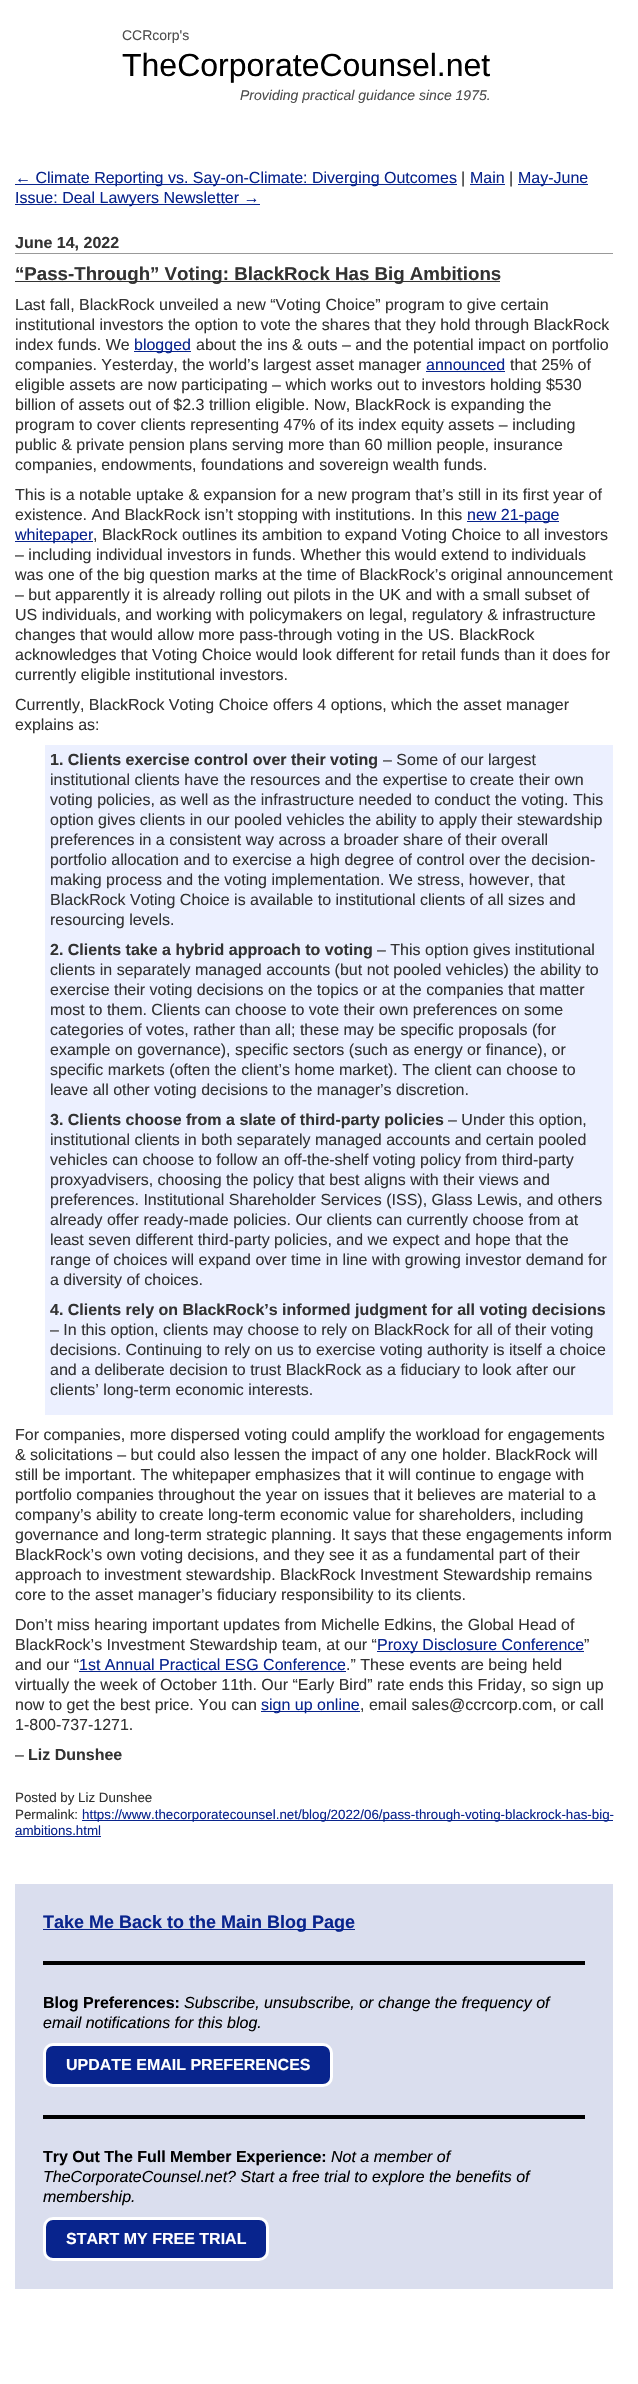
void draw(SkCanvas* canvas) {
  SkPaint paint;
  paint.setAntiAlias(true);
  auto face = [&](const char* family, int weight, float size, bool italic = false) {
    SkFontStyle style(weight, SkFontStyle::kNormal_Width,
      italic ? SkFontStyle::kItalic_Slant : SkFontStyle::kUpright_Slant);
    SkFont result(fontMgr->matchFamilyStyle(family, style), size);
    result.setSubpixel(true);
    return result;
  };
  canvas->clear(0xffffffff);
  {
    const struct { float x, y, w, h; SkColor color; } items[] = {
      {15, 184, 442, 1, 0xff09248d},
      {470, 184, 35, 1, 0xff09248d},
      {518, 184, 70, 1, 0xff09248d},
      {15, 204, 245, 1, 0xff09248d},
      {15, 253, 598, 1, 0xff999999},
      {15, 281, 485, 1, 0xff333333},
      {134, 351, 57, 1, 0xff09248d},
      {426, 371, 79, 1, 0xff09248d},
      {467, 521, 92, 1, 0xff09248d},
      {15, 541, 78, 1, 0xff09248d},
      {45, 745, 568, 670, 0xffecf0ff},
      {377, 1651, 207, 1, 0xff09248d},
      {79, 1671, 267, 1, 0xff09248d},
      {261, 1711, 99, 1, 0xff09248d},
      {82, 1820, 531, 1, 0xff09248d},
      {15, 1836, 86, 1, 0xff09248d},
      {15, 1884, 598, 405, 0xffdadeee},
      {43, 1929, 312, 1, 0xff08248d},
      {43, 1961, 542, 4, 0xff000000},
    };
    for (auto [x, y, w, h, color] : items) {
      paint.setColor(color);
      canvas->drawRect(SkRect::MakeXYWH(x, y, w, h), paint);
    }
  }
  paint.setColor(0xff08248d);
  canvas->drawRoundRect(SkRect::MakeXYWH(44.5f, 2044.5f, 287, 41), 8.5f, 8.5f, paint);
  paint.setStroke(true);
  paint.setStrokeWidth(3);
  paint.setColor(0xffffffff);
  canvas->drawRoundRect(SkRect::MakeXYWH(44.5f, 2044.5f, 287, 41), 8.5f, 8.5f, paint);
  paint.setStroke(false);
  paint.setColor(0xff000000);
  canvas->drawRect(SkRect::MakeXYWH(43, 2115, 542, 4), paint);
  paint.setColor(0xff08248d);
  canvas->drawRoundRect(SkRect::MakeXYWH(44.5f, 2218.5f, 223, 41), 8.5f, 8.5f, paint);
  paint.setStroke(true);
  paint.setColor(0xffffffff);
  canvas->drawRoundRect(SkRect::MakeXYWH(44.5f, 2218.5f, 223, 41), 8.5f, 8.5f, paint);
  auto f0 = face("Liberation Sans", 400, 14);
  paint.setStroke(false);
  paint.setColor(0xff4d4d4d);
  canvas->drawString("CCRcorp's", 122, 40, f0, paint);
  auto f1 = face("Liberation Sans", 400, 32);
  paint.setColor(0xff000000);
  canvas->drawString("TheCorporateCounsel.net", 122, 76, f1, paint);
  auto f2 = face("Liberation Sans", 400, 14, true);
  paint.setColor(0xff4d4d4d);
  canvas->drawString("Providing practical guidance since 1975.", 240, 100, f2, paint);
  auto f3 = face("Liberation Sans", 400, 16);
  paint.setColor(0xff09248d);
  canvas->drawString("← Climate Reporting vs. Say-on-Climate: Diverging Outcomes", 15, 183, f3, paint);
  paint.setColor(0xff333333);
  canvas->drawString("|", 461, 183, f3, paint);
  paint.setColor(0xff09248d);
  canvas->drawString("Main", 470, 183, f3, paint);
  paint.setColor(0xff333333);
  canvas->drawString("|", 509, 183, f3, paint);
  paint.setColor(0xff09248d);
  canvas->drawString("May-June", 518, 183, f3, paint);
  canvas->drawString("Issue: Deal Lawyers Newsletter →", 15, 203, f3, paint);
  auto f4 = face("Liberation Sans", 700, 16);
  paint.setColor(0xff333333);
  canvas->drawString("June 14, 2022", 15, 248, f4, paint);
  auto f5 = face("Liberation Sans", 700, 18.7f);
  canvas->drawString("“Pass-Through” Voting: BlackRock Has Big Ambitions", 15, 280, f5, paint);
  {
    const struct { const char* s; float x, y; } items[] = {
      {"Last fall, BlackRock unveiled a new “Voting Choice” program to give certain", 15, 310},
      {"institutional investors the option to vote the shares that they hold through BlackRock", 15, 330},
      {"index funds. We", 15, 350},
    };
    for (auto [s, x, y] : items) {
      canvas->drawString(s, x, y, f3, paint);
    }
  }
  paint.setColor(0xff09248d);
  canvas->drawString("blogged", 134, 350, f3, paint);
  paint.setColor(0xff333333);
  canvas->drawString("about the ins & outs – and the potential impact on portfolio", 196, 350, f3, paint);
  canvas->drawString("companies. Yesterday, the world’s largest asset manager", 15, 370, f3, paint);
  paint.setColor(0xff09248d);
  canvas->drawString("announced", 426, 370, f3, paint);
  paint.setColor(0xff333333);
  {
    const struct { const char* s; float x, y; } items[] = {
      {"that 25% of", 510, 370},
      {"eligible assets are now participating – which works out to investors holding $530", 15, 390},
      {"billion of assets out of $2.3 trillion eligible. Now, BlackRock is expanding the", 15, 410},
      {"program to cover clients representing 47% of its index equity assets – including", 15, 430},
      {"public & private pension plans serving more than 60 million people, insurance", 15, 450},
      {"companies, endowments, foundations and sovereign wealth funds.", 15, 470},
      {"This is a notable uptake & expansion for a new program that’s still in its first year of", 15, 500},
      {"existence. And BlackRock isn’t stopping with institutions. In this", 15, 520},
    };
    for (auto [s, x, y] : items) {
      canvas->drawString(s, x, y, f3, paint);
    }
  }
  paint.setColor(0xff09248d);
  canvas->drawString("new 21-page", 467, 520, f3, paint);
  canvas->drawString("whitepaper", 15, 540, f3, paint);
  paint.setColor(0xff333333);
  {
    const struct { const char* s; float x, y; } items[] = {
      {", BlackRock outlines its ambition to expand Voting Choice to all investors", 93, 540},
      {"– including individual investors in funds. Whether this would extend to individuals", 15, 560},
      {"was one of the big question marks at the time of BlackRock’s original announcement", 15, 580},
      {"– but apparently it is already rolling out pilots in the UK and with a small subset of", 15, 600},
      {"US individuals, and working with policymakers on legal, regulatory & infrastructure", 15, 620},
      {"changes that would allow more pass-through voting in the US. BlackRock", 15, 640},
      {"acknowledges that Voting Choice would look different for retail funds than it does for", 15, 660},
      {"currently eligible institutional investors.", 15, 680},
      {"Currently, BlackRock Voting Choice offers 4 options, which the asset manager", 15, 710},
      {"explains as:", 15, 730},
    };
    for (auto [s, x, y] : items) {
      canvas->drawString(s, x, y, f3, paint);
    }
  }
  canvas->drawString("1. Clients exercise control over their voting", 50, 765, f4, paint);
  {
    const struct { const char* s; float x, y; } items[] = {
      {"– Some of our largest", 383, 765},
      {"institutional clients have the resources and the expertise to create their own", 50, 785},
      {"voting policies, as well as the infrastructure needed to conduct the voting. This", 50, 805},
      {"option gives clients in our pooled vehicles the ability to apply their stewardship", 50, 825},
      {"preferences in a consistent way across a broader share of their overall", 50, 845},
      {"portfolio allocation and to exercise a high degree of control over the decision-", 50, 865},
      {"making process and the voting implementation. We stress, however, that", 50, 885},
      {"BlackRock Voting Choice is available to institutional clients of all sizes and", 50, 905},
      {"resourcing levels.", 50, 925},
    };
    for (auto [s, x, y] : items) {
      canvas->drawString(s, x, y, f3, paint);
    }
  }
  canvas->drawString("2. Clients take a hybrid approach to voting", 50, 955, f4, paint);
  {
    const struct { const char* s; float x, y; } items[] = {
      {"– This option gives institutional", 377, 955},
      {"clients in separately managed accounts (but not pooled vehicles) the ability to", 50, 975},
      {"exercise their voting decisions on the topics or at the companies that matter", 50, 995},
      {"most to them. Clients can choose to vote their own preferences on some", 50, 1015},
      {"categories of votes, rather than all; these may be specific proposals (for", 50, 1035},
      {"example on governance), specific sectors (such as energy or finance), or", 50, 1055},
      {"specific markets (often the client’s home market). The client can choose to", 50, 1075},
      {"leave all other voting decisions to the manager’s discretion.", 50, 1095},
    };
    for (auto [s, x, y] : items) {
      canvas->drawString(s, x, y, f3, paint);
    }
  }
  canvas->drawString("3. Clients choose from a slate of third-party policies", 50, 1125, f4, paint);
  {
    const struct { const char* s; float x, y; } items[] = {
      {"– Under this option,", 448, 1125},
      {"institutional clients in both separately managed accounts and certain pooled", 50, 1145},
      {"vehicles can choose to follow an off-the-shelf voting policy from third-party", 50, 1165},
      {"proxyadvisers, choosing the policy that best aligns with their views and", 50, 1185},
      {"preferences. Institutional Shareholder Services (ISS), Glass Lewis, and others", 50, 1205},
      {"already offer ready-made policies. Our clients can currently choose from at", 50, 1225},
      {"least seven different third-party policies, and we expect and hope that the", 50, 1245},
      {"range of choices will expand over time in line with growing investor demand for", 50, 1265},
      {"a diversity of choices.", 50, 1285},
    };
    for (auto [s, x, y] : items) {
      canvas->drawString(s, x, y, f3, paint);
    }
  }
  canvas->drawString("4. Clients rely on BlackRock’s informed judgment for all voting decisions", 50, 1315, f4, paint);
  {
    const struct { const char* s; float x, y; } items[] = {
      {"– In this option, clients may choose to rely on BlackRock for all of their voting", 50, 1335},
      {"decisions. Continuing to rely on us to exercise voting authority is itself a choice", 50, 1355},
      {"and a deliberate decision to trust BlackRock as a fiduciary to look after our", 50, 1375},
      {"clients’ long-term economic interests.", 50, 1395},
      {"For companies, more dispersed voting could amplify the workload for engagements", 15, 1440},
      {"& solicitations – but could also lessen the impact of any one holder. BlackRock will", 15, 1460},
      {"still be important. The whitepaper emphasizes that it will continue to engage with", 15, 1480},
      {"portfolio companies throughout the year on issues that it believes are material to a", 15, 1500},
      {"company’s ability to create long-term economic value for shareholders, including", 15, 1520},
      {"governance and long-term strategic planning. It says that these engagements inform", 15, 1540},
      {"BlackRock’s own voting decisions, and they see it as a fundamental part of their", 15, 1560},
      {"approach to investment stewardship. BlackRock Investment Stewardship remains", 15, 1580},
      {"core to the asset manager’s fiduciary responsibility to its clients.", 15, 1600},
      {"Don’t miss hearing important updates from Michelle Edkins, the Global Head of", 15, 1630},
      {"BlackRock’s Investment Stewardship team, at our “", 15, 1650},
    };
    for (auto [s, x, y] : items) {
      canvas->drawString(s, x, y, f3, paint);
    }
  }
  paint.setColor(0xff09248d);
  canvas->drawString("Proxy Disclosure Conference", 377, 1650, f3, paint);
  paint.setColor(0xff333333);
  canvas->drawString("”", 584, 1650, f3, paint);
  canvas->drawString("and our “", 15, 1670, f3, paint);
  paint.setColor(0xff09248d);
  canvas->drawString("1st Annual Practical ESG Conference", 79, 1670, f3, paint);
  paint.setColor(0xff333333);
  {
    const struct { const char* s; float x, y; } items[] = {
      {".” These events are being held", 346, 1670},
      {"virtually the week of October 11th. Our “Early Bird” rate ends this Friday, so sign up", 15, 1690},
      {"now to get the best price. You can", 15, 1710},
    };
    for (auto [s, x, y] : items) {
      canvas->drawString(s, x, y, f3, paint);
    }
  }
  paint.setColor(0xff09248d);
  canvas->drawString("sign up online", 261, 1710, f3, paint);
  paint.setColor(0xff333333);
  {
    const struct { const char* s; float x, y; } items[] = {
      {", email sales@ccrcorp.com, or call", 360, 1710},
      {"1-800-737-1271.", 15, 1730},
      {"–", 15, 1760},
    };
    for (auto [s, x, y] : items) {
      canvas->drawString(s, x, y, f3, paint);
    }
  }
  canvas->drawString("Liz Dunshee", 28, 1760, f4, paint);
  auto f6 = face("Liberation Sans", 400, 13.35f);
  canvas->drawString("Posted by Liz Dunshee", 15, 1802, f6, paint);
  canvas->drawString("Permalink:", 15, 1819, f6, paint);
  paint.setColor(0xff09248d);
  canvas->drawString("https://www.thecorporatecounsel.net/blog/2022/06/pass-through-voting-blackrock-has-big-", 82, 1819, f6, paint);
  canvas->drawString("ambitions.html", 15, 1835, f6, paint);
  auto f7 = face("Liberation Sans", 700, 18);
  canvas->drawString("Take Me Back to the Main Blog Page", 43, 1928, f7, paint);
  paint.setColor(0xff000000);
  canvas->drawString("Blog Preferences:", 43, 2008, f4, paint);
  auto f8 = face("Liberation Sans", 400, 16, true);
  canvas->drawString("Subscribe, unsubscribe, or change the frequency of", 184, 2008, f8, paint);
  canvas->drawString("email notifications for this blog.", 43, 2028, f8, paint);
  paint.setColor(0xffffffff);
  canvas->drawString("UPDATE EMAIL PREFERENCES", 66, 2070, f4, paint);
  paint.setColor(0xff000000);
  canvas->drawString("Try Out The Full Member Experience:", 43, 2162, f4, paint);
  {
    const struct { const char* s; float x, y; } items[] = {
      {"Not a member of", 331, 2162},
      {"TheCorporateCounsel.net? Start a free trial to explore the benefits of", 43, 2182},
      {"membership.", 43, 2202},
    };
    for (auto [s, x, y] : items) {
      canvas->drawString(s, x, y, f8, paint);
    }
  }
  paint.setColor(0xffffffff);
  canvas->drawString("START MY FREE TRIAL", 66, 2244, f4, paint);
}
